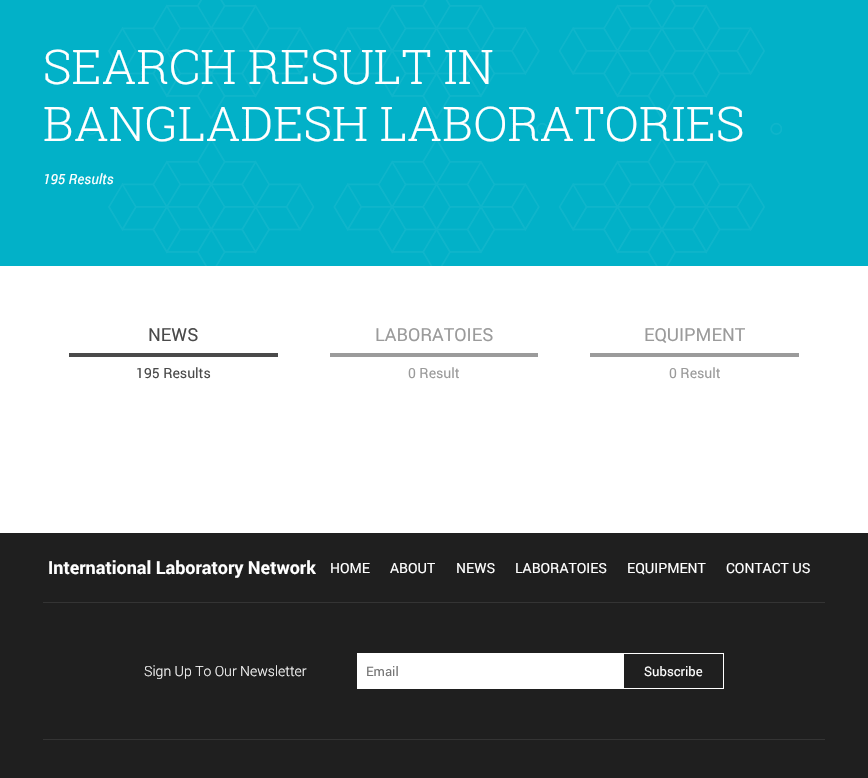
void draw(SkCanvas* canvas) {
  SkPaint paint;
  paint.setAntiAlias(true);
  auto face = [&](const char* family, int weight, float size, bool italic = false) {
    SkFontStyle style(weight, SkFontStyle::kNormal_Width,
      italic ? SkFontStyle::kItalic_Slant : SkFontStyle::kUpright_Slant);
    SkFont result(fontMgr->matchFamilyStyle(family, style), size);
    result.setSubpixel(true);
    return result;
  };
  auto paste = [&](const char* path, float x, float y, float w, float h) {
    auto image = SkImages::DeferredFromEncodedData(SkData::MakeFromFileName(path));
    canvas->drawImageRect(image, SkRect::MakeXYWH(x, y, w, h), SkSamplingOptions());
  };
  canvas->clear(0xffffffff);
  paint.setColor(0xff02b1c8);
  canvas->drawRect(SkRect::MakeXYWH(0, 0, 868, 266), paint);
  paste("img/1.png", 86, 0, 696, 266);
  {
    const struct { float x, y, w, h; SkColor color; } items[] = {
      {69, 353, 209, 4, 0xff4a4a4a},
      {330, 353, 208, 4, 0xff9b9b9b},
      {590, 353, 209, 4, 0xff9b9b9b},
      {0, 533, 868, 245, 0xff1f1f1f},
      {43, 602, 782, 1, 0xff343434},
      {43, 739, 782, 1, 0xff343434},
      {357, 653, 367, 36, 0xffffffff},
      {624, 654, 99, 34, 0xff1f1f1f},
    };
    for (auto [x, y, w, h, color] : items) {
      paint.setColor(color);
      canvas->drawRect(SkRect::MakeXYWH(x, y, w, h), paint);
    }
  }
  auto f0 = face("Roboto Slab", 300, 48);
  paint.setColor(0xffffffff);
  canvas->drawString("SEARCH RESULT IN", 43, 84, f0, paint);
  canvas->drawString("BANGLADESH LABORATORIES", 43, 141, f0, paint);
  auto f1 = face("Roboto", 400, 14, true);
  canvas->drawString("195 Results", 43, 184, f1, paint);
  auto f2 = face("Roboto", 400, 18);
  paint.setColor(0xff4a4a4a);
  canvas->drawString("NEWS", 148, 341, f2, paint);
  auto f3 = face("Roboto", 400, 14);
  canvas->drawString("195 Results", 136, 378, f3, paint);
  paint.setColor(0xff9b9b9b);
  canvas->drawString("LABORATOIES", 375, 341, f2, paint);
  canvas->drawString("0 Result", 408, 378, f3, paint);
  canvas->drawString("EQUIPMENT", 644, 341, f2, paint);
  canvas->drawString("0 Result", 669, 378, f3, paint);
  auto f4 = face("Roboto", 700, 18);
  paint.setColor(0xffffffff);
  canvas->drawString("International Laboratory Network", 48, 574, f4, paint);
  {
    const struct { const char* s; float x, y; } items[] = {
      {"HOME", 330, 573},
      {"ABOUT", 390, 573},
      {"NEWS", 456, 573},
      {"LABORATOIES", 515, 573},
      {"EQUIPMENT", 627, 573},
      {"CONTACT US", 726, 573},
    };
    for (auto [s, x, y] : items) {
      canvas->drawString(s, x, y, f3, paint);
    }
  }
  auto f5 = face("Roboto", 300, 14);
  canvas->drawString("Sign Up To Our Newsletter", 144, 676, f5, paint);
  auto f6 = face("Roboto", 400, 13);
  paint.setColor(0xff757575);
  canvas->drawString("Email", 366, 676, f6, paint);
  paint.setColor(0xffffffff);
  canvas->drawString("Subscribe", 644, 676, f6, paint);
}
